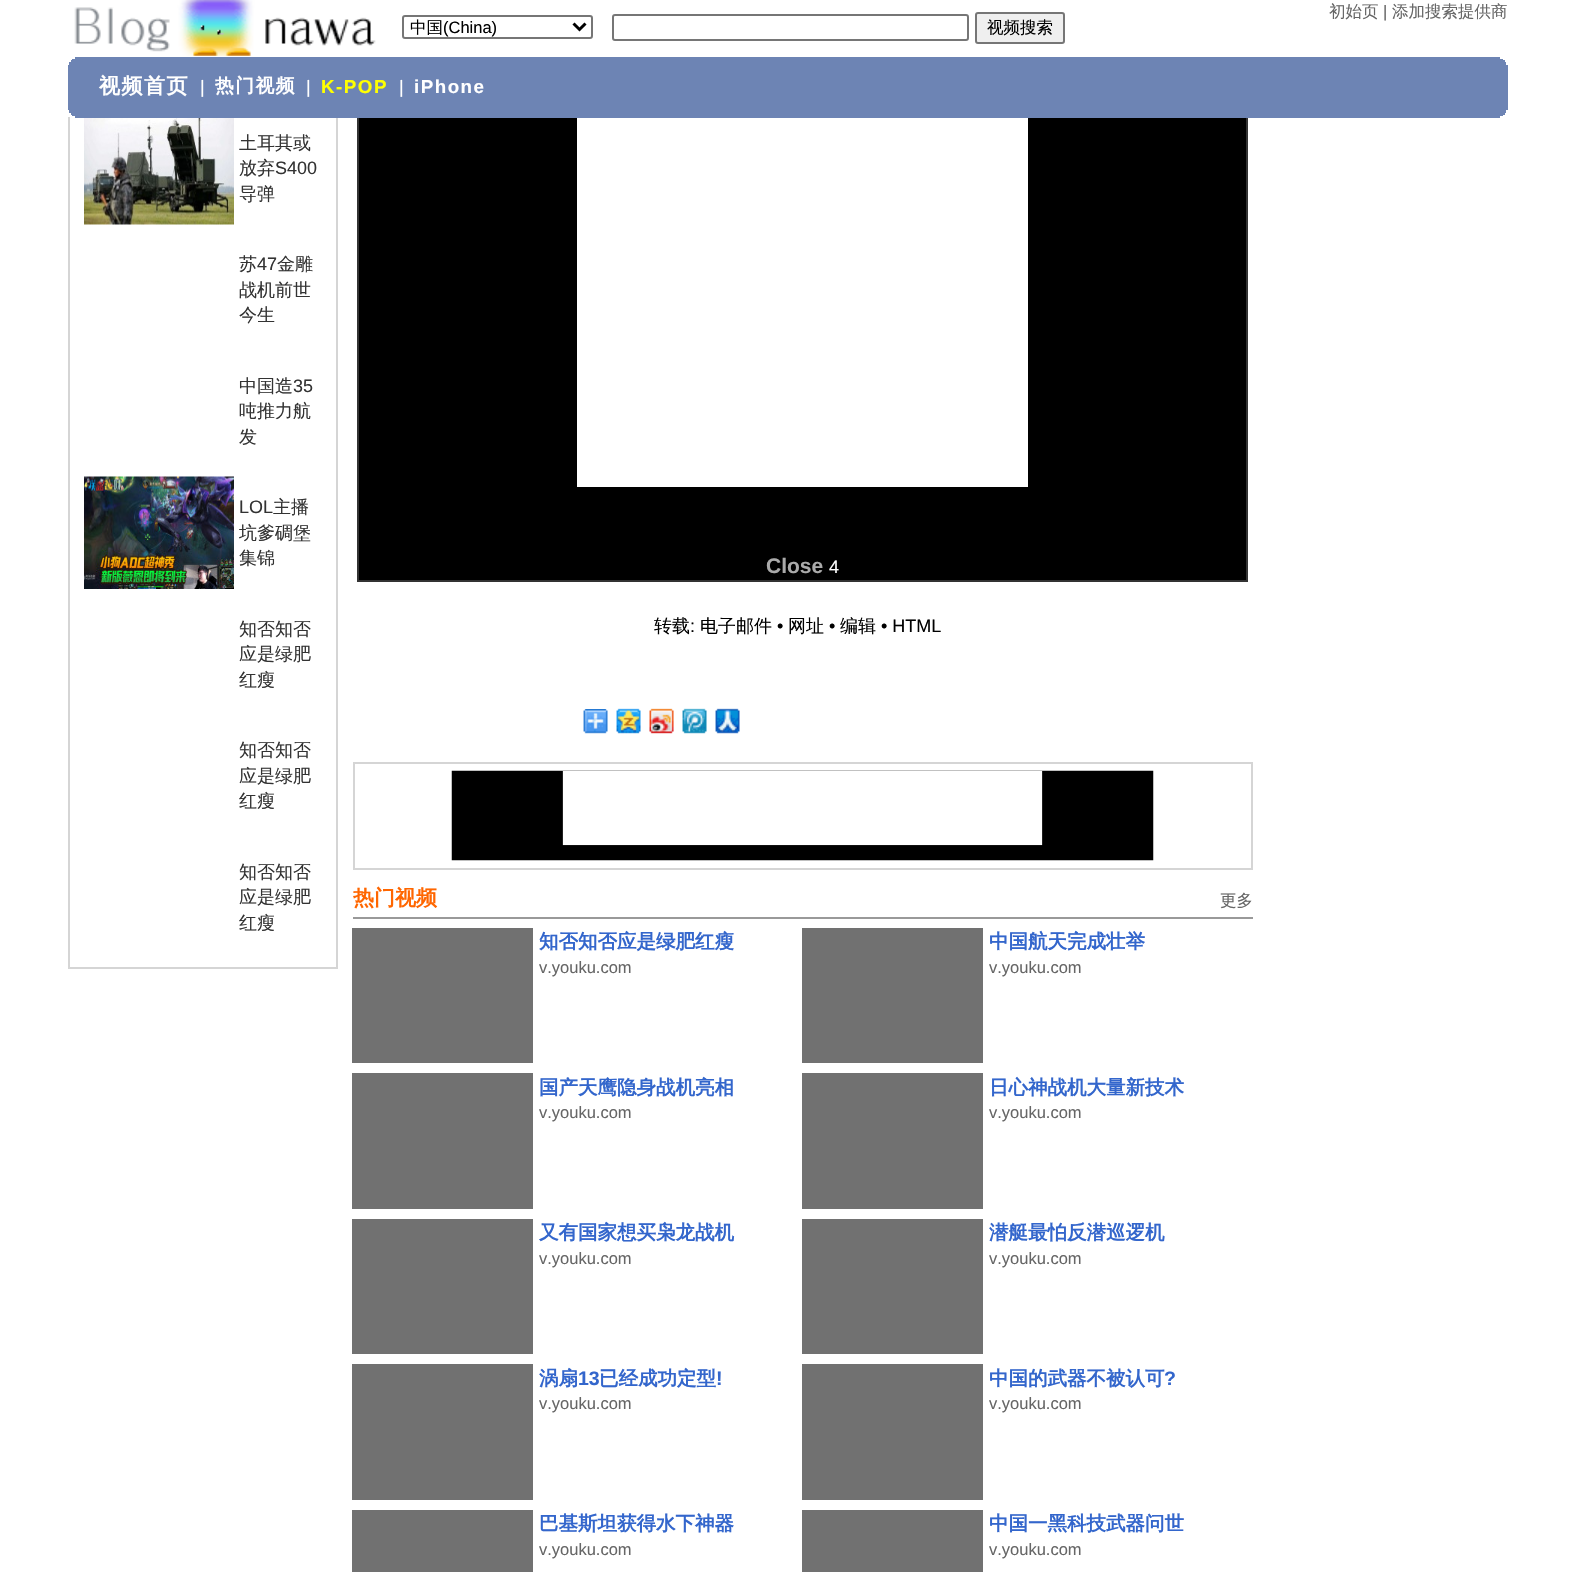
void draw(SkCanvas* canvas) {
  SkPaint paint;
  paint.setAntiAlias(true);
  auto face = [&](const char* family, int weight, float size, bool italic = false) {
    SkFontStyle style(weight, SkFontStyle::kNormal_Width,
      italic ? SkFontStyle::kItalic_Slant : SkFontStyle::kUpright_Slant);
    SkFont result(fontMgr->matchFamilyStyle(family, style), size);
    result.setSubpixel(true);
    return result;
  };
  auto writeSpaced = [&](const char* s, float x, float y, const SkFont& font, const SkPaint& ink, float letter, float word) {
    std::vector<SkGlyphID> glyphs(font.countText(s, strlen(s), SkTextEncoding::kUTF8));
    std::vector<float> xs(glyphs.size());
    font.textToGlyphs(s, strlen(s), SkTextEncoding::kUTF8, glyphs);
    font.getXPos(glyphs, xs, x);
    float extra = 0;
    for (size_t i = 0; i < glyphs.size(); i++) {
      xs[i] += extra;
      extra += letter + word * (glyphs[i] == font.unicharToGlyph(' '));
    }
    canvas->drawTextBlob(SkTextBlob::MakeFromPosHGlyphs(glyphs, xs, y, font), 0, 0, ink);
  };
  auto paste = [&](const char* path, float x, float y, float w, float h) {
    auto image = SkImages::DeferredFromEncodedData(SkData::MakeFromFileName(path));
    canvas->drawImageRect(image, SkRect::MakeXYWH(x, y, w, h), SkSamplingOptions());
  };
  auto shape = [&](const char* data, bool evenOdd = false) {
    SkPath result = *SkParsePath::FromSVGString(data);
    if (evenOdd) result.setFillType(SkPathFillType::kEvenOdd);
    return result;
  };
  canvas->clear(0xffffffff);
  paint.setStroke(true);
  paint.setStrokeWidth(2);
  paint.setColor(0xffd5d5d5);
  canvas->drawRect(SkRect::MakeXYWH(69, -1, 268, 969), paint);
  paint.setStroke(false);
  paint.setColor(0xff000000);
  canvas->drawRect(SkRect::MakeXYWH(359, 118, 887, 462), paint);
  paint.setStroke(true);
  paint.setColor(0xff333333);
  canvas->drawRect(SkRect::MakeXYWH(358, 103, 889, 478), paint);
  paint.setStroke(false);
  paint.setColor(0xffffffff);
  canvas->drawRect(SkRect::MakeXYWH(68, 0, 1180, 117), paint);
  paste("img/1.png", 74, 0, 302, 56);
  paste("img/2.png", 77, 8, 298, 48);
  paint.setStroke(true);
  paint.setColor(0xff767676);
  canvas->drawRoundRect(SkRect::MakeXYWH(403, 16, 189, 22), 2, 2, paint);
  paint.setStrokeWidth(3);
  paint.setColor(0xff000000);
  canvas->drawPath(shape("M573.5 23.5L579.5 29.5L585.5 23.5"), paint);
  paint.setStrokeWidth(2);
  paint.setColor(0xff767676);
  canvas->drawRoundRect(SkRect::MakeXYWH(613, 15, 355, 25), 2, 2, paint);
  paint.setStroke(false);
  paint.setColor(0xffefefef);
  canvas->drawRoundRect(SkRect::MakeXYWH(976, 13, 88, 30), 2, 2, paint);
  paint.setStroke(true);
  paint.setColor(0xff767676);
  canvas->drawRoundRect(SkRect::MakeXYWH(976, 13, 88, 30), 2, 2, paint);
  paint.setStroke(false);
  {
    const struct { float x, y, w, h; SkColor color; } items[] = {
      {68, 65, 1440, 45, 0xff6d84b4},
      {75, 57, 1425, 2, 0xff6d84b4},
      {72, 59, 1431, 1, 0xff6d84b4},
      {71, 60, 1434, 2, 0xff6d84b4},
      {69, 62, 1437, 3, 0xff6d84b4},
      {69, 110, 1437, 3, 0xff6d84b4},
      {71, 113, 1434, 2, 0xff6d84b4},
      {72, 115, 1431, 1, 0xff6d84b4},
      {75, 116, 1425, 2, 0xff6d84b4},
    };
    for (auto [x, y, w, h, color] : items) {
      paint.setColor(color);
      canvas->drawRect(SkRect::MakeXYWH(x, y, w, h), paint);
    }
  }
  paste("img/3.png", 84, 118, 150, 107);
  paste("img/4.png", 84, 476, 150, 113);
  paint.setColor(0xffffffff);
  canvas->drawRect(SkRect::MakeXYWH(577, 118, 451, 369), paint);
  paste("img/5.png", 583, 709, 25, 25);
  paste("img/6.png", 616, 708, 25, 26);
  paste("img/7.png", 649, 708, 25, 26);
  paste("img/8.png", 682, 708, 25, 26);
  paste("img/9.png", 715, 708, 25, 26);
  paint.setStroke(true);
  paint.setColor(0xffd5d5d5);
  canvas->drawRect(SkRect::MakeXYWH(354, 763, 898, 106), paint);
  paste("img/10.png", 451, 770, 703, 91);
  paint.setStroke(false);
  {
    const struct { float x, y, w, h; SkColor color; } items[] = {
      {353, 917, 900, 2, 0xff999999},
      {352, 928, 181, 135, 0xff717171},
      {802, 928, 181, 135, 0xff717171},
      {352, 1073, 181, 136, 0xff717171},
      {802, 1073, 181, 136, 0xff717171},
      {352, 1219, 181, 135, 0xff717171},
      {802, 1219, 181, 135, 0xff717171},
      {352, 1364, 181, 136, 0xff717171},
      {802, 1364, 181, 136, 0xff717171},
      {352, 1510, 181, 62, 0xff717171},
      {802, 1510, 181, 62, 0xff717171},
    };
    for (auto [x, y, w, h, color] : items) {
      paint.setColor(color);
      canvas->drawRect(SkRect::MakeXYWH(x, y, w, h), paint);
    }
  }
  auto f0 = face("WenQuanYi Zen Hei", 500, 16.5f);
  paint.setColor(0xff666666);
  canvas->drawString("初始页", 1329, 17, f0, paint);
  auto f1 = face("Liberation Sans", 400, 16.5f);
  canvas->drawString("|", 1383, 17, f1, paint);
  canvas->drawString("添加搜索提供商", 1392, 17, f0, paint);
  paint.setColor(0xff000000);
  canvas->drawString("中国", 410, 33, f0, paint);
  canvas->drawString("(China)", 443, 33, f1, paint);
  canvas->drawString("视频搜索", 987, 33, f0, paint);
  auto f2 = face("WenQuanYi Zen Hei", 700, 21);
  paint.setColor(0xffffffff);
  writeSpaced("视频首页", 99, 93, f2, paint, 1.5f, 0);
  auto f3 = face("Liberation Sans", 400, 18);
  canvas->drawString("|", 200, 93, f3, paint);
  auto f4 = face("WenQuanYi Zen Hei", 700, 18.75f);
  writeSpaced("热门视频", 215, 92, f4, paint, 1.5f, 0);
  canvas->drawString("|", 306, 93, f3, paint);
  auto f5 = face("Liberation Sans", 700, 18.75f);
  paint.setColor(0xffffff00);
  writeSpaced("K-POP", 321, 93, f5, paint, 1.5f, 0);
  paint.setColor(0xffffffff);
  canvas->drawString("|", 399, 93, f3, paint);
  writeSpaced("iPhone", 414, 93, f5, paint, 1.5f, 0);
  auto f6 = face("WenQuanYi Zen Hei", 500, 18);
  paint.setColor(0xff333333);
  canvas->drawString("土耳其或", 239, 149, f6, paint);
  canvas->drawString("放弃", 239, 174, f6, paint);
  canvas->drawString("S400", 275, 174, f3, paint);
  canvas->drawString("导弹", 239, 200, f6, paint);
  canvas->drawString("苏", 239, 270, f6, paint);
  canvas->drawString("47", 257, 270, f3, paint);
  {
    const struct { const char* s; float x, y; } items[] = {
      {"金雕", 277, 270},
      {"战机前世", 239, 296},
      {"今生", 239, 321},
      {"中国造", 239, 392},
    };
    for (auto [s, x, y] : items) {
      canvas->drawString(s, x, y, f6, paint);
    }
  }
  canvas->drawString("35", 293, 392, f3, paint);
  canvas->drawString("吨推力航", 239, 417, f6, paint);
  canvas->drawString("发", 239, 443, f6, paint);
  canvas->drawString("LOL", 239, 513, f3, paint);
  {
    const struct { const char* s; float x, y; } items[] = {
      {"主播", 273, 513},
      {"坑爹碉堡", 239, 539},
      {"集锦", 239, 564},
      {"知否知否", 239, 635},
      {"应是绿肥", 239, 660},
      {"红瘦", 239, 686},
      {"知否知否", 239, 756},
      {"应是绿肥", 239, 782},
      {"红瘦", 239, 807},
      {"知否知否", 239, 878},
      {"应是绿肥", 239, 903},
      {"红瘦", 239, 929},
    };
    for (auto [s, x, y] : items) {
      canvas->drawString(s, x, y, f6, paint);
    }
  }
  auto f7 = face("Liberation Sans", 700, 21);
  paint.setColor(0xffaaaaaa);
  canvas->drawString("Close", 766, 573, f7, paint);
  paint.setColor(0xffffffff);
  canvas->drawString("4", 829, 573, f3, paint);
  paint.setColor(0xff000000);
  canvas->drawString("转载", 654, 632, f6, paint);
  canvas->drawString(":", 690, 632, f3, paint);
  canvas->drawString("电子邮件", 700, 632, f6, paint);
  canvas->drawString("•", 777, 632, f3, paint);
  canvas->drawString("网址", 788, 632, f6, paint);
  canvas->drawString("•", 829, 632, f3, paint);
  canvas->drawString("编辑", 840, 632, f6, paint);
  canvas->drawString("• HTML", 881, 632, f3, paint);
  paint.setColor(0xffff6600);
  canvas->drawString("热门视频", 353, 905, f2, paint);
  paint.setColor(0xff666666);
  canvas->drawString("更多", 1220, 906, f0, paint);
  auto f8 = face("WenQuanYi Zen Hei", 700, 19.5f);
  paint.setColor(0xff3366cc);
  canvas->drawString("知否知否应是绿肥红瘦", 539, 948, f8, paint);
  paint.setColor(0xff666666);
  canvas->drawString("v.youku.com", 539, 973, f1, paint);
  paint.setColor(0xff3366cc);
  canvas->drawString("中国航天完成壮举", 989, 948, f8, paint);
  paint.setColor(0xff666666);
  canvas->drawString("v.youku.com", 989, 973, f1, paint);
  paint.setColor(0xff3366cc);
  canvas->drawString("国产天鹰隐身战机亮相", 539, 1094, f8, paint);
  paint.setColor(0xff666666);
  canvas->drawString("v.youku.com", 539, 1118, f1, paint);
  paint.setColor(0xff3366cc);
  canvas->drawString("日心神战机大量新技术", 989, 1094, f8, paint);
  paint.setColor(0xff666666);
  canvas->drawString("v.youku.com", 989, 1118, f1, paint);
  paint.setColor(0xff3366cc);
  canvas->drawString("又有国家想买枭龙战机", 539, 1239, f8, paint);
  paint.setColor(0xff666666);
  canvas->drawString("v.youku.com", 539, 1264, f1, paint);
  paint.setColor(0xff3366cc);
  canvas->drawString("潜艇最怕反潜巡逻机", 989, 1239, f8, paint);
  paint.setColor(0xff666666);
  canvas->drawString("v.youku.com", 989, 1264, f1, paint);
  paint.setColor(0xff3366cc);
  canvas->drawString("涡扇", 539, 1385, f8, paint);
  auto f9 = face("Liberation Sans", 700, 19.5f);
  canvas->drawString("13", 578, 1385, f9, paint);
  canvas->drawString("已经成功定型", 599, 1385, f8, paint);
  canvas->drawString("!", 716, 1385, f9, paint);
  paint.setColor(0xff666666);
  canvas->drawString("v.youku.com", 539, 1409, f1, paint);
  paint.setColor(0xff3366cc);
  canvas->drawString("中国的武器不被认可", 989, 1385, f8, paint);
  canvas->drawString("?", 1164, 1385, f9, paint);
  paint.setColor(0xff666666);
  canvas->drawString("v.youku.com", 989, 1409, f1, paint);
  paint.setColor(0xff3366cc);
  canvas->drawString("巴基斯坦获得水下神器", 539, 1530, f8, paint);
  paint.setColor(0xff666666);
  canvas->drawString("v.youku.com", 539, 1555, f1, paint);
  paint.setColor(0xff3366cc);
  canvas->drawString("中国一黑科技武器问世", 989, 1530, f8, paint);
  paint.setColor(0xff666666);
  canvas->drawString("v.youku.com", 989, 1555, f1, paint);
}
